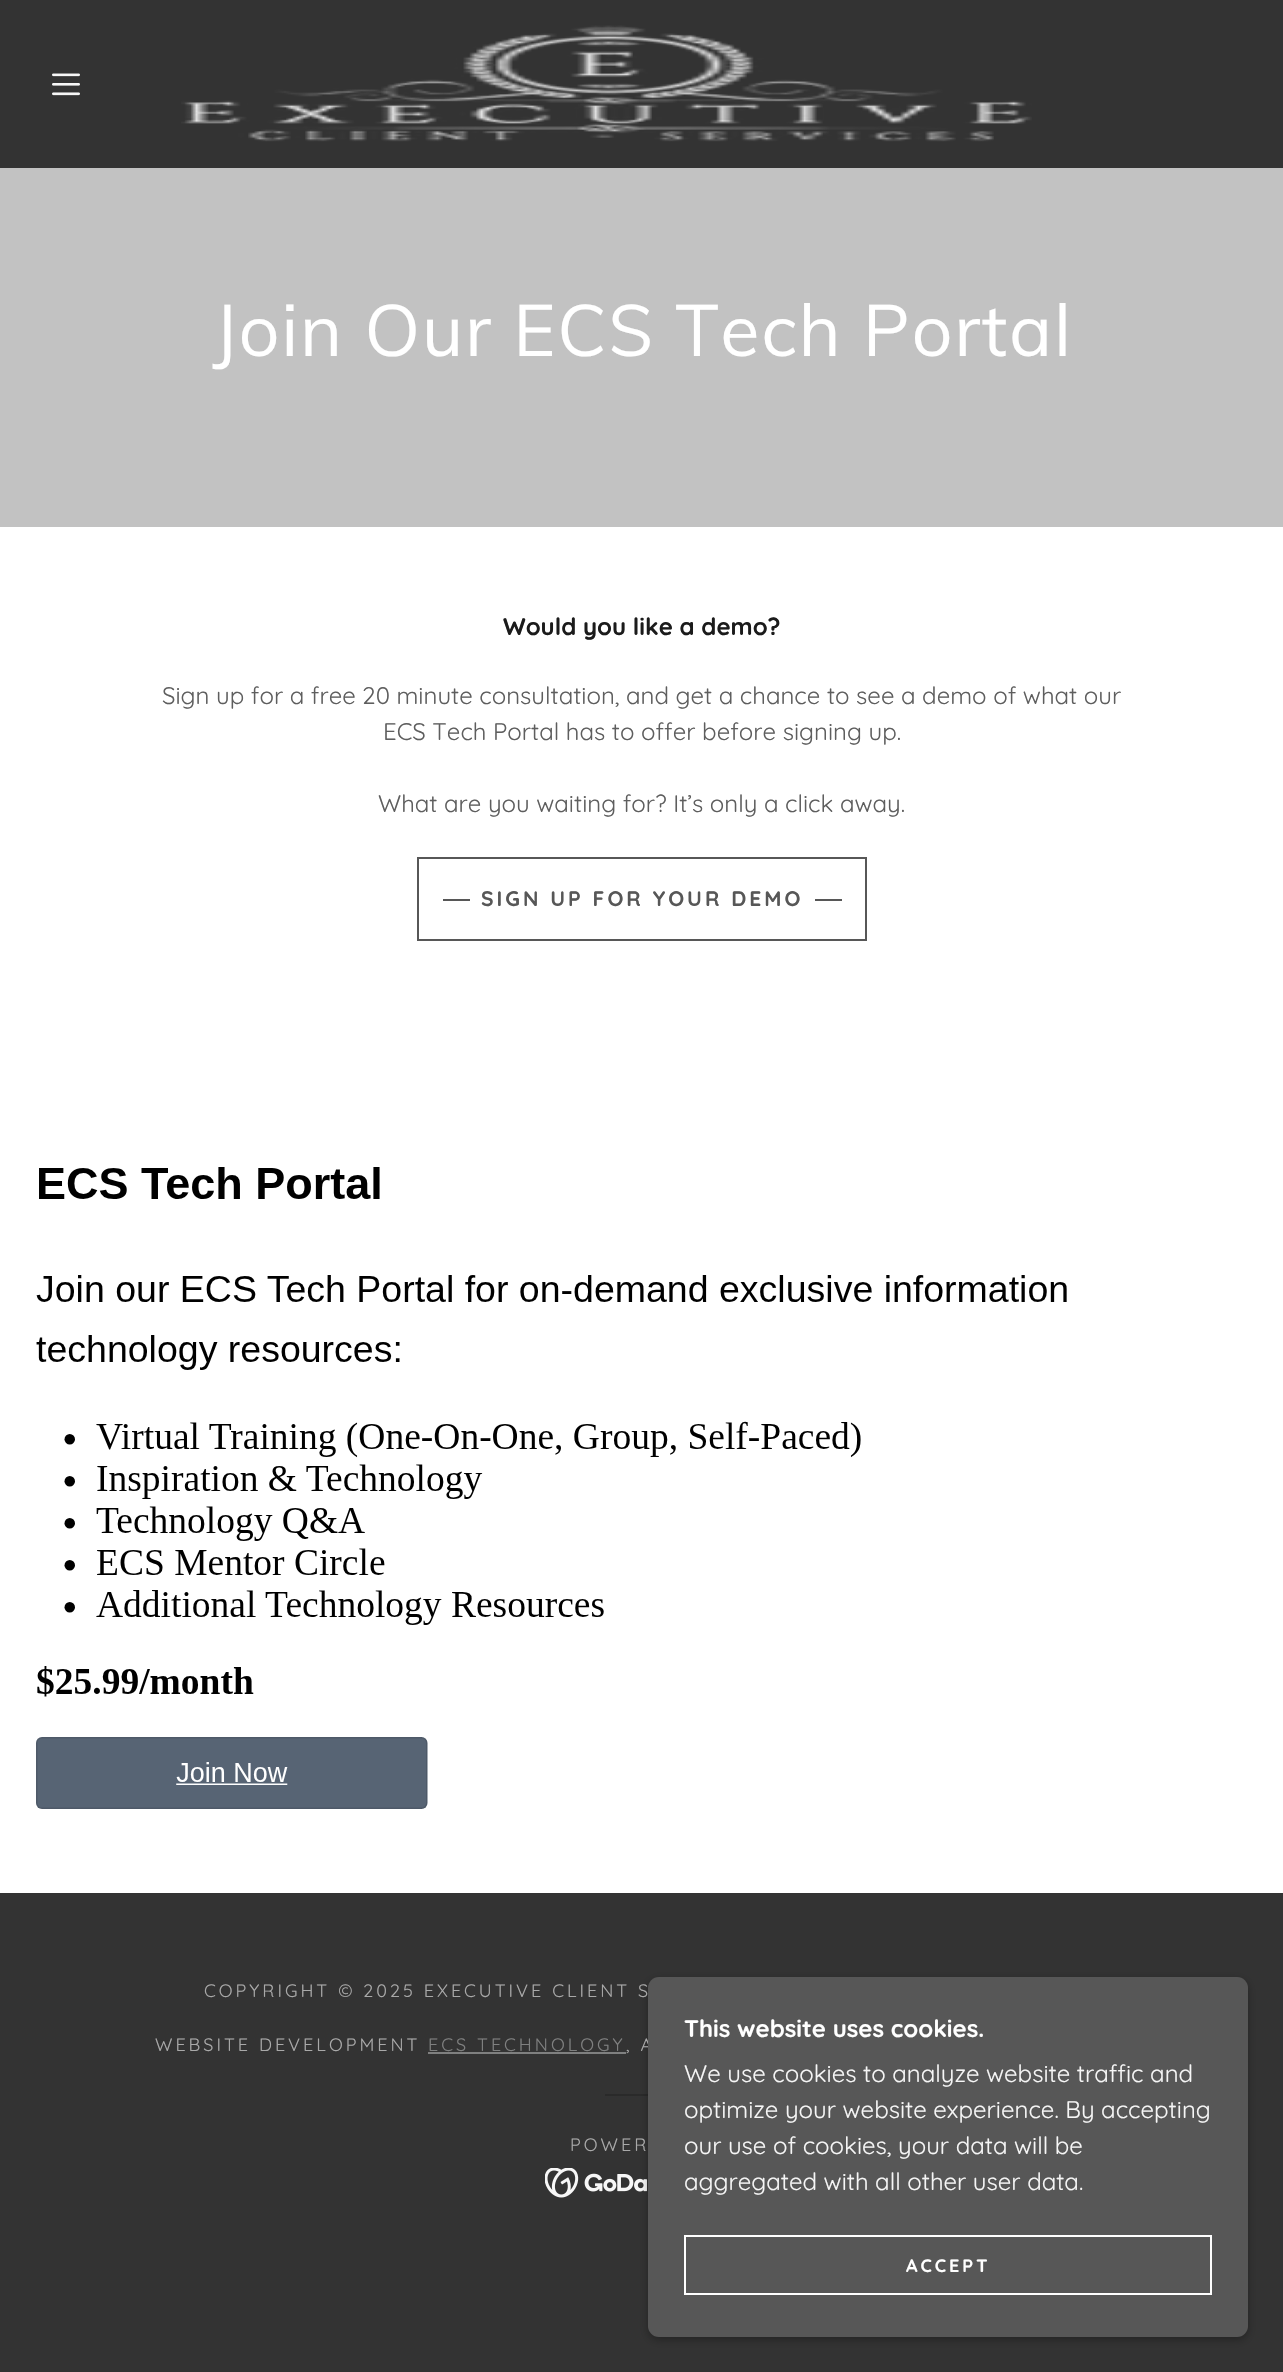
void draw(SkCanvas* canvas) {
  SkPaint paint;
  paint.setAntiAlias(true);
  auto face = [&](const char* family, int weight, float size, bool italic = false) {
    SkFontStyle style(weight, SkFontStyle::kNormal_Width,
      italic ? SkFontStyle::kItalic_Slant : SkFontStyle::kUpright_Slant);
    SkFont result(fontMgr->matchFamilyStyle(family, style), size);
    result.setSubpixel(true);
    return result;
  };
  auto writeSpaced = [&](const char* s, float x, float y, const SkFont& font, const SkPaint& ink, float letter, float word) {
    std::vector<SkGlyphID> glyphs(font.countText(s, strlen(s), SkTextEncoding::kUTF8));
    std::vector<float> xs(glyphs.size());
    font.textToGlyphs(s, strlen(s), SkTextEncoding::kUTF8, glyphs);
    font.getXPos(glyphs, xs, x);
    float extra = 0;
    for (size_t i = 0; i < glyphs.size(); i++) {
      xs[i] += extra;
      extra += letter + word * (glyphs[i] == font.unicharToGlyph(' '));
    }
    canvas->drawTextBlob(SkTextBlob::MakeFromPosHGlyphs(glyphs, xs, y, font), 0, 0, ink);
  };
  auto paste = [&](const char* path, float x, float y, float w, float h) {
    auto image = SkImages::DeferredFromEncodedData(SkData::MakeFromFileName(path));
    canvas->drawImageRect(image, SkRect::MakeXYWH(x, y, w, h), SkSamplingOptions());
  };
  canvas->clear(0xff333333);
  paste("img/1.png", 52, 73, 28, 23);
  paste("img/2.png", 181, 25, 851, 117);
  paint.setColor(0xffc2c2c2);
  canvas->drawRect(SkRect::MakeXYWH(0, 168, 1283, 359), paint);
  paint.setColor(0xffffffff);
  canvas->drawRect(SkRect::MakeXYWH(0, 527, 1283, 1366), paint);
  paint.setStroke(true);
  paint.setStrokeWidth(2);
  paint.setColor(0xff575757);
  canvas->drawRect(SkRect::MakeXYWH(418, 858, 448, 82), paint);
  paint.setStroke(false);
  canvas->drawRect(SkRect::MakeXYWH(443, 899, 27, 2), paint);
  canvas->drawRect(SkRect::MakeXYWH(815, 899, 27, 2), paint);
  paste("img/3.png", 36, 1167, 1031, 642);
  paint.setColor(0xff7f8080);
  canvas->drawRect(SkRect::MakeXYWH(428, 2052, 198, 2), paint);
  paint.setColor(0xff2a2a2a);
  canvas->drawRect(SkRect::MakeXYWH(605, 2094, 43, 2), paint);
  paste("img/4.png", 545, 2168, 102, 30);
  paint.setColor(0x4d000000);
  paint.setMaskFilter(SkMaskFilter::MakeBlur(kNormal_SkBlurStyle, 4.5f));
  canvas->drawRoundRect(SkRect::MakeXYWH(648, 1980, 600, 360), 11, 11, paint);
  paint.setMaskFilter(nullptr);
  auto f0 = face("Muli", 400, 72);
  paint.setColor(0xffffffff);
  writeSpaced("Join Our ECS Tech Portal", 213, 356, f0, paint, 1.7f, 0);
  auto f1 = face("Quicksand", 700, 24);
  paint.setColor(0xff1b1b1b);
  canvas->drawString("Would you like a demo?", 503, 635, f1, paint);
  auto f2 = face("Quicksand", 400, 24);
  paint.setColor(0xff5e5e5e);
  {
    const struct { const char* s; float x, y; } items[] = {
      {"Sign up for a free 20 minute consultation, and get a chance to see a demo of what our", 162, 704},
      {"ECS Tech Portal has to offer before signing up.", 383, 740},
      {"What are you waiting for? It’s only a click away.", 378, 812},
    };
    for (auto [s, x, y] : items) {
      canvas->drawString(s, x, y, f2, paint);
    }
  }
  auto f3 = face("Quicksand", 700, 21);
  paint.setColor(0xff575757);
  writeSpaced("SIGN UP FOR YOUR DEMO", 481, 906, f3, paint, 3, 0);
  auto f4 = face("Quicksand", 400, 18);
  paint.setColor(0xffa9a9a9);
  writeSpaced("COPYRIGHT © 2025 EXECUTIVE CLIENT S", 204, 1997, f4, paint, 3, 0);
  writeSpaced("WEBSITE DEVELOPMENT", 155, 2051, f4, paint, 3, 0);
  paint.setColor(0xff7f8080);
  writeSpaced("ECS TECHNOLOGY", 428, 2051, f4, paint, 3, 0);
  paint.setColor(0xffa9a9a9);
  writeSpaced(", A", 626, 2051, f4, paint, 3, 0);
  writeSpaced("POWER", 570, 2151, f4, paint, 3, 0);
  paint.setColor(0xff575757);
  canvas->drawRoundRect(SkRect::MakeXYWH(648, 1977, 600, 360), 11, 11, paint);
  paint.setColor(0xffffffff);
  canvas->drawString("This website uses cookies.", 684, 2037, f1, paint);
  paint.setColor(0xfff6f6f6);
  {
    const struct { const char* s; float x, y; } items[] = {
      {"We use cookies to analyze website traffic and", 684, 2082},
      {"optimize your website experience. By accepting", 684, 2118},
      {"our use of cookies, your data will be", 684, 2154},
      {"aggregated with all other user data.", 684, 2190},
    };
    for (auto [s, x, y] : items) {
      canvas->drawString(s, x, y, f2, paint);
    }
  }
  paint.setStroke(true);
  paint.setColor(0xffffffff);
  canvas->drawRect(SkRect::MakeXYWH(685, 2236, 526, 58), paint);
  auto f5 = face("Quicksand", 700, 18);
  paint.setStroke(false);
  writeSpaced("ACCEPT", 906, 2272, f5, paint, 3, 0);
}
